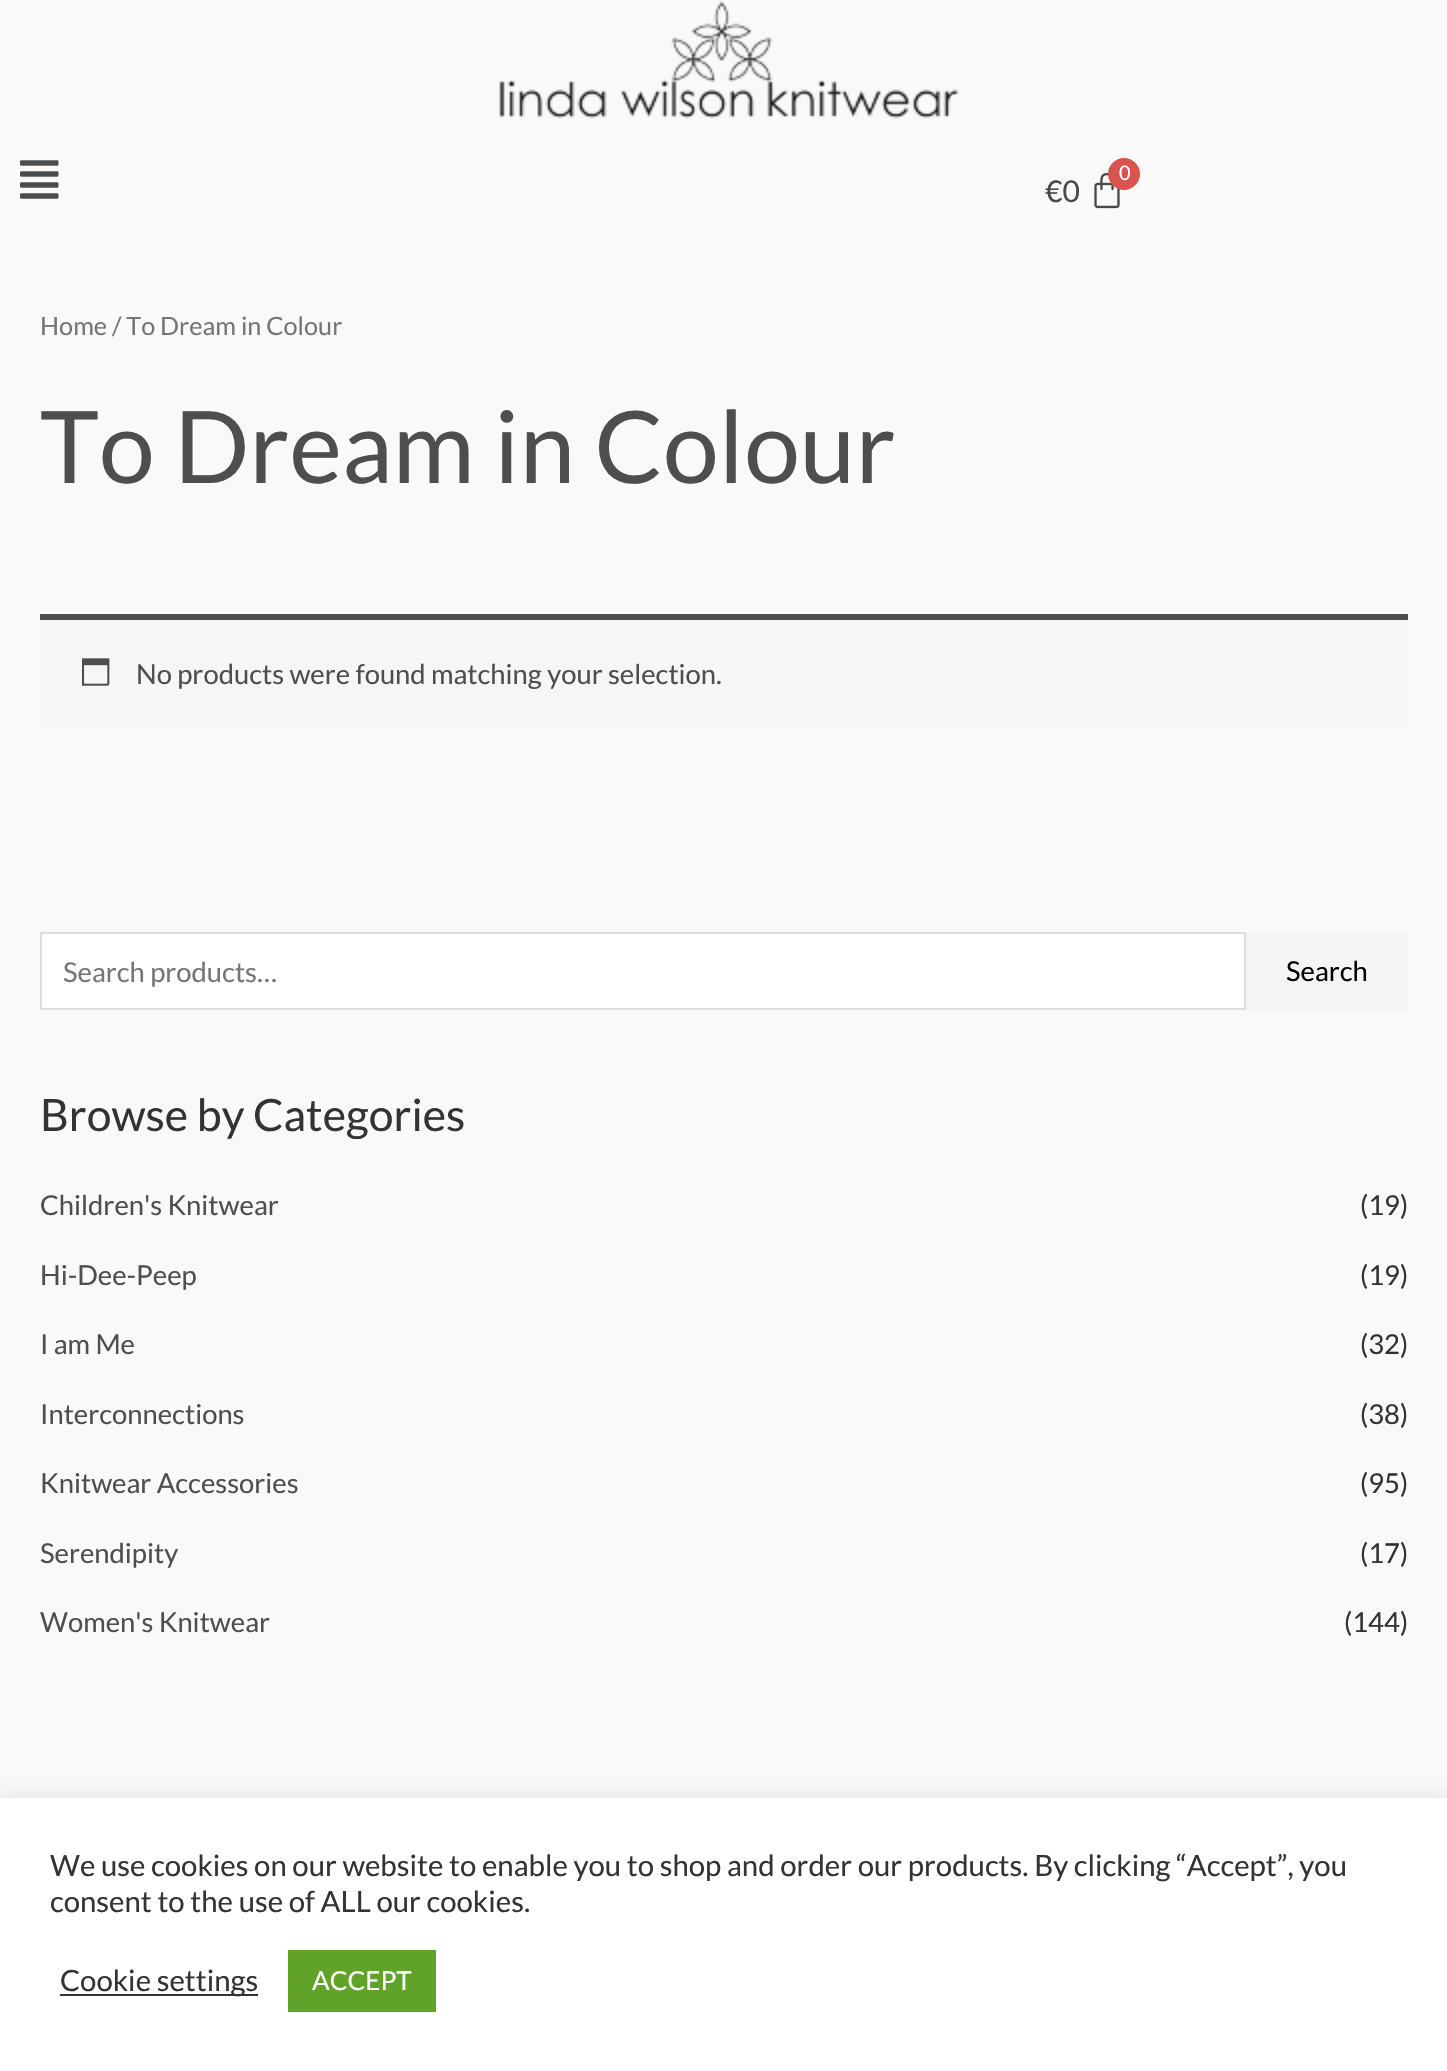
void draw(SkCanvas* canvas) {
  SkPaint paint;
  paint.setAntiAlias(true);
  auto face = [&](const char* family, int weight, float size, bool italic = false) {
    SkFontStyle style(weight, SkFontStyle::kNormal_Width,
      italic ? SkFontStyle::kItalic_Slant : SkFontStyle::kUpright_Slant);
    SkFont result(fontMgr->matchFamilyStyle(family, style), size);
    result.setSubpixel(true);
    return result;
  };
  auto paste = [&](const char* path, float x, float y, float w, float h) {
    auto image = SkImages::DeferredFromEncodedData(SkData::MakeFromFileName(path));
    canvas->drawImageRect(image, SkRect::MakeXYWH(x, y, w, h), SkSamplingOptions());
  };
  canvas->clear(0xfff9f9f9);
  paste("img/1.png", 499, 0, 460, 119);
  paste("img/2.png", 20, 160, 39, 39);
  paste("img/3.png", 1094, 173, 26, 36);
  paint.setColor(0xffd9534f);
  canvas->drawCircle(1124, 174, 16, paint);
  paint.setColor(0xfff7f6f7);
  canvas->drawRect(SkRect::MakeXYWH(40, 620, 1368, 106), paint);
  paint.setColor(0xff4e4e4e);
  canvas->drawRect(SkRect::MakeXYWH(40, 614, 1368, 6), paint);
  paste("img/4.png", 82, 658, 28, 28);
  paint.setColor(0xffffffff);
  canvas->drawRect(SkRect::MakeXYWH(41, 933, 1204, 76), paint);
  paint.setStroke(true);
  paint.setStrokeWidth(2);
  paint.setColor(0xffdddddd);
  canvas->drawRect(SkRect::MakeXYWH(41, 933, 1204, 76), paint);
  paint.setStroke(false);
  paint.setColor(0xfff4f4f4);
  canvas->drawRect(SkRect::MakeXYWH(1246, 932, 162, 78), paint);
  paint.setColor(0x4dacabab);
  paint.setMaskFilter(SkMaskFilter::MakeBlur(kNormal_SkBlurStyle, 10));
  canvas->drawRect(SkRect::MakeXYWH(0, 1796, 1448, 274), paint);
  paint.setMaskFilter(nullptr);
  {
    const struct { float x, y, w, h; SkColor color; } items[] = {
      {0, 1798, 1447, 273, 0xffffffff},
      {60, 1994, 198, 2, 0xff333333},
      {288, 1950, 148, 62, 0xff61a229},
    };
    for (auto [x, y, w, h, color] : items) {
      paint.setColor(color);
      canvas->drawRect(SkRect::MakeXYWH(x, y, w, h), paint);
    }
  }
  auto f0 = face("Lato", 400, 20);
  paint.setColor(0xffffffff);
  canvas->drawString("0", 1119, 180, f0, paint);
  auto f1 = face("Lato", 400, 30);
  paint.setColor(0xff4d4848);
  canvas->drawString("€0", 1045, 202, f1, paint);
  auto f2 = face("Lato", 400, 25.25f);
  paint.setColor(0xff757575);
  canvas->drawString("Home / To Dream in Colour", 40, 335, f2, paint);
  auto f3 = face("Lato", 400, 100);
  paint.setColor(0xff4e4e4e);
  canvas->drawString("To Dream in Colour", 40, 483, f3, paint);
  auto f4 = face("Lato", 400, 27.4f);
  canvas->drawString("No products were found matching your selection.", 136, 684, f4, paint);
  paint.setColor(0xff757575);
  canvas->drawString("Search products…", 63, 982, f4, paint);
  paint.setColor(0xff000000);
  canvas->drawString("Search", 1286, 981, f4, paint);
  auto f5 = face("Lato", 400, 44.5f);
  paint.setColor(0xff333333);
  canvas->drawString("Browse by Categories", 40, 1131, f5, paint);
  paint.setColor(0xff4e4e4e);
  canvas->drawString("Children's Knitwear", 40, 1215, f4, paint);
  paint.setColor(0xff333333);
  canvas->drawString("(19)", 1360, 1215, f4, paint);
  paint.setColor(0xff4e4e4e);
  canvas->drawString("Hi-Dee-Peep", 40, 1285, f4, paint);
  paint.setColor(0xff333333);
  canvas->drawString("(19)", 1360, 1285, f4, paint);
  paint.setColor(0xff4e4e4e);
  canvas->drawString("I am Me", 40, 1354, f4, paint);
  paint.setColor(0xff333333);
  canvas->drawString("(32)", 1360, 1354, f4, paint);
  paint.setColor(0xff4e4e4e);
  canvas->drawString("Interconnections", 40, 1424, f4, paint);
  paint.setColor(0xff333333);
  canvas->drawString("(38)", 1360, 1424, f4, paint);
  paint.setColor(0xff4e4e4e);
  canvas->drawString("Knitwear Accessories", 40, 1493, f4, paint);
  paint.setColor(0xff333333);
  canvas->drawString("(95)", 1360, 1493, f4, paint);
  paint.setColor(0xff4e4e4e);
  canvas->drawString("Serendipity", 40, 1563, f4, paint);
  paint.setColor(0xff333333);
  canvas->drawString("(17)", 1360, 1563, f4, paint);
  paint.setColor(0xff4e4e4e);
  canvas->drawString("Women's Knitwear", 40, 1632, f4, paint);
  paint.setColor(0xff333333);
  canvas->drawString("(144)", 1344, 1632, f4, paint);
  auto f6 = face("Lato", 400, 29.35f);
  {
    const struct { const char* s; float x, y; } items[] = {
      {"We use cookies on our website to enable you to shop and order our products. By clicking “Accept”, you", 50, 1876},
      {"consent to the use of ALL our cookies.", 50, 1912},
      {"Cookie settings", 60, 1991},
    };
    for (auto [s, x, y] : items) {
      canvas->drawString(s, x, y, f6, paint);
    }
  }
  auto f7 = face("Lato", 400, 26);
  paint.setColor(0xffffffff);
  canvas->drawString("ACCEPT", 312, 1990, f7, paint);
}
